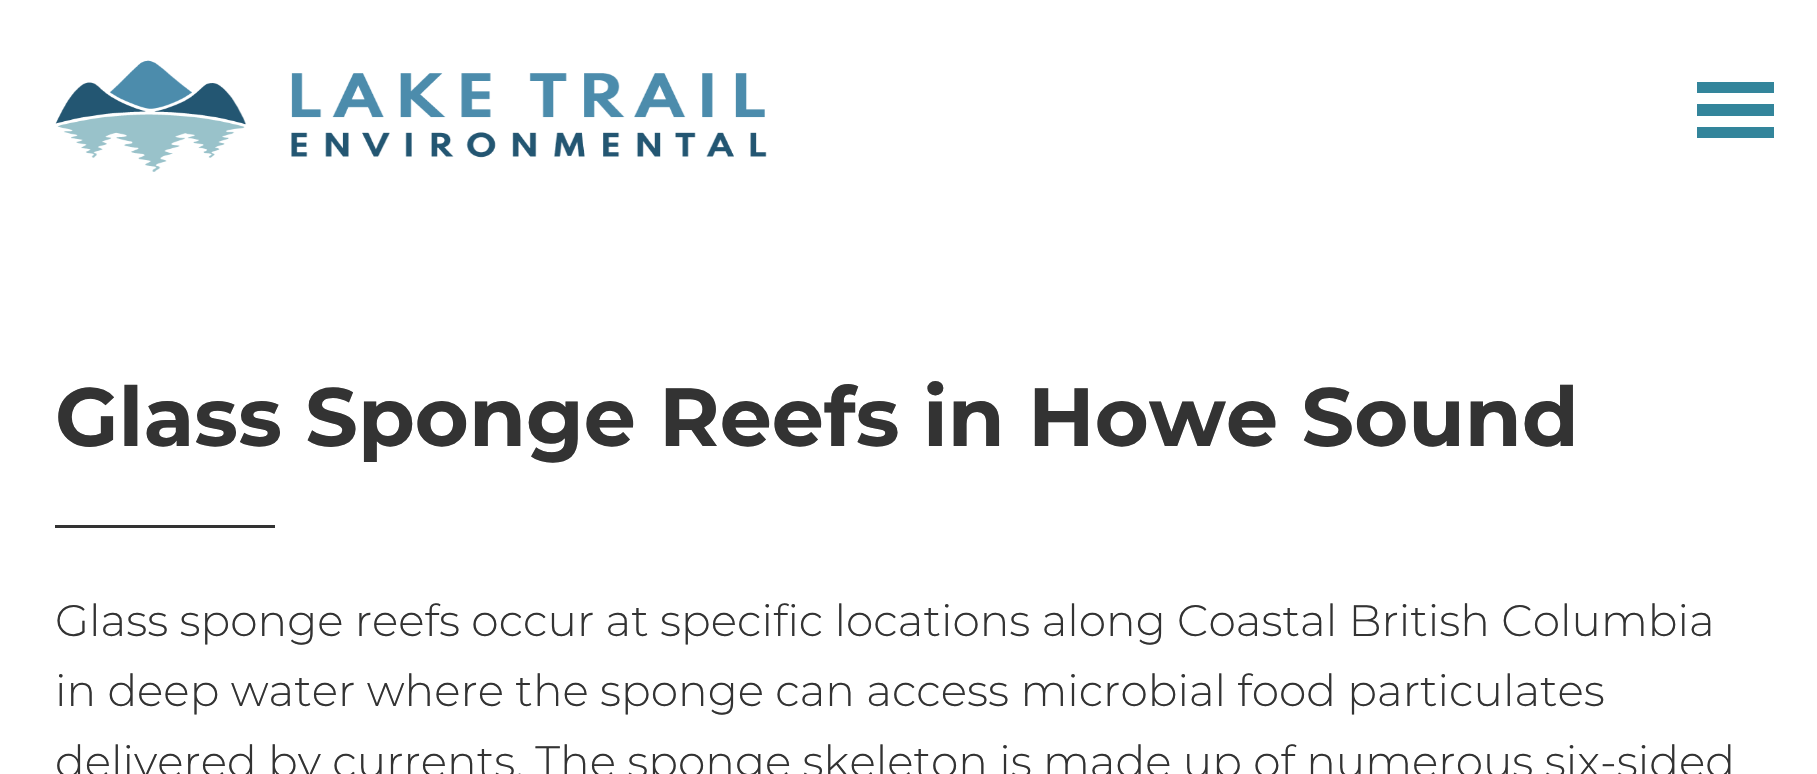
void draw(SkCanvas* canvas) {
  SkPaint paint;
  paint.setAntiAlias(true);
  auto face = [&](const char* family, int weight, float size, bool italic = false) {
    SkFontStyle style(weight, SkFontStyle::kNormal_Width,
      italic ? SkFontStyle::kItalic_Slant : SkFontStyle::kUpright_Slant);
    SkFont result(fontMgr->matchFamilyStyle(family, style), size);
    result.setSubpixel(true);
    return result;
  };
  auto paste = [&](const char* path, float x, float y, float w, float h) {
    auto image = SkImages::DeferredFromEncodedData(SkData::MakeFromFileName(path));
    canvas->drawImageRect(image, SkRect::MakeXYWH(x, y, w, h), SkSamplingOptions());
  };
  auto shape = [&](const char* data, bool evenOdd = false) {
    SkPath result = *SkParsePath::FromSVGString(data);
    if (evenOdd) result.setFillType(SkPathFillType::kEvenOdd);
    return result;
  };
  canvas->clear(0xffffffff);
  paste("img/1.png", 55, 60, 712, 112);
  paint.setColor(0xff33859b);
  canvas->drawPath(shape("M1697 138H1774V127H1697ZM1697 82V93H1774V82ZM1697 116H1774V104H1697Z"), paint);
  paint.setColor(0xff333333);
  canvas->drawRect(SkRect::MakeXYWH(55, 525, 220, 3), paint);
  auto f0 = face("Montserrat", 700, 82.5f);
  canvas->drawString("Glass Sponge Reefs in Howe Sound", 55, 446, f0, paint);
  auto f1 = face("Montserrat", 300, 44);
  {
    const struct { const char* s; float x, y; } items[] = {
      {"Glass sponge reefs occur at specific locations along Coastal British Columbia", 55, 636},
      {"in deep water where the sponge can access microbial food particulates", 55, 706},
      {"delivered by currents. The sponge skeleton is made up of numerous six-sided", 55, 777},
    };
    for (auto [s, x, y] : items) {
      canvas->drawString(s, x, y, f1, paint);
    }
  }
}
